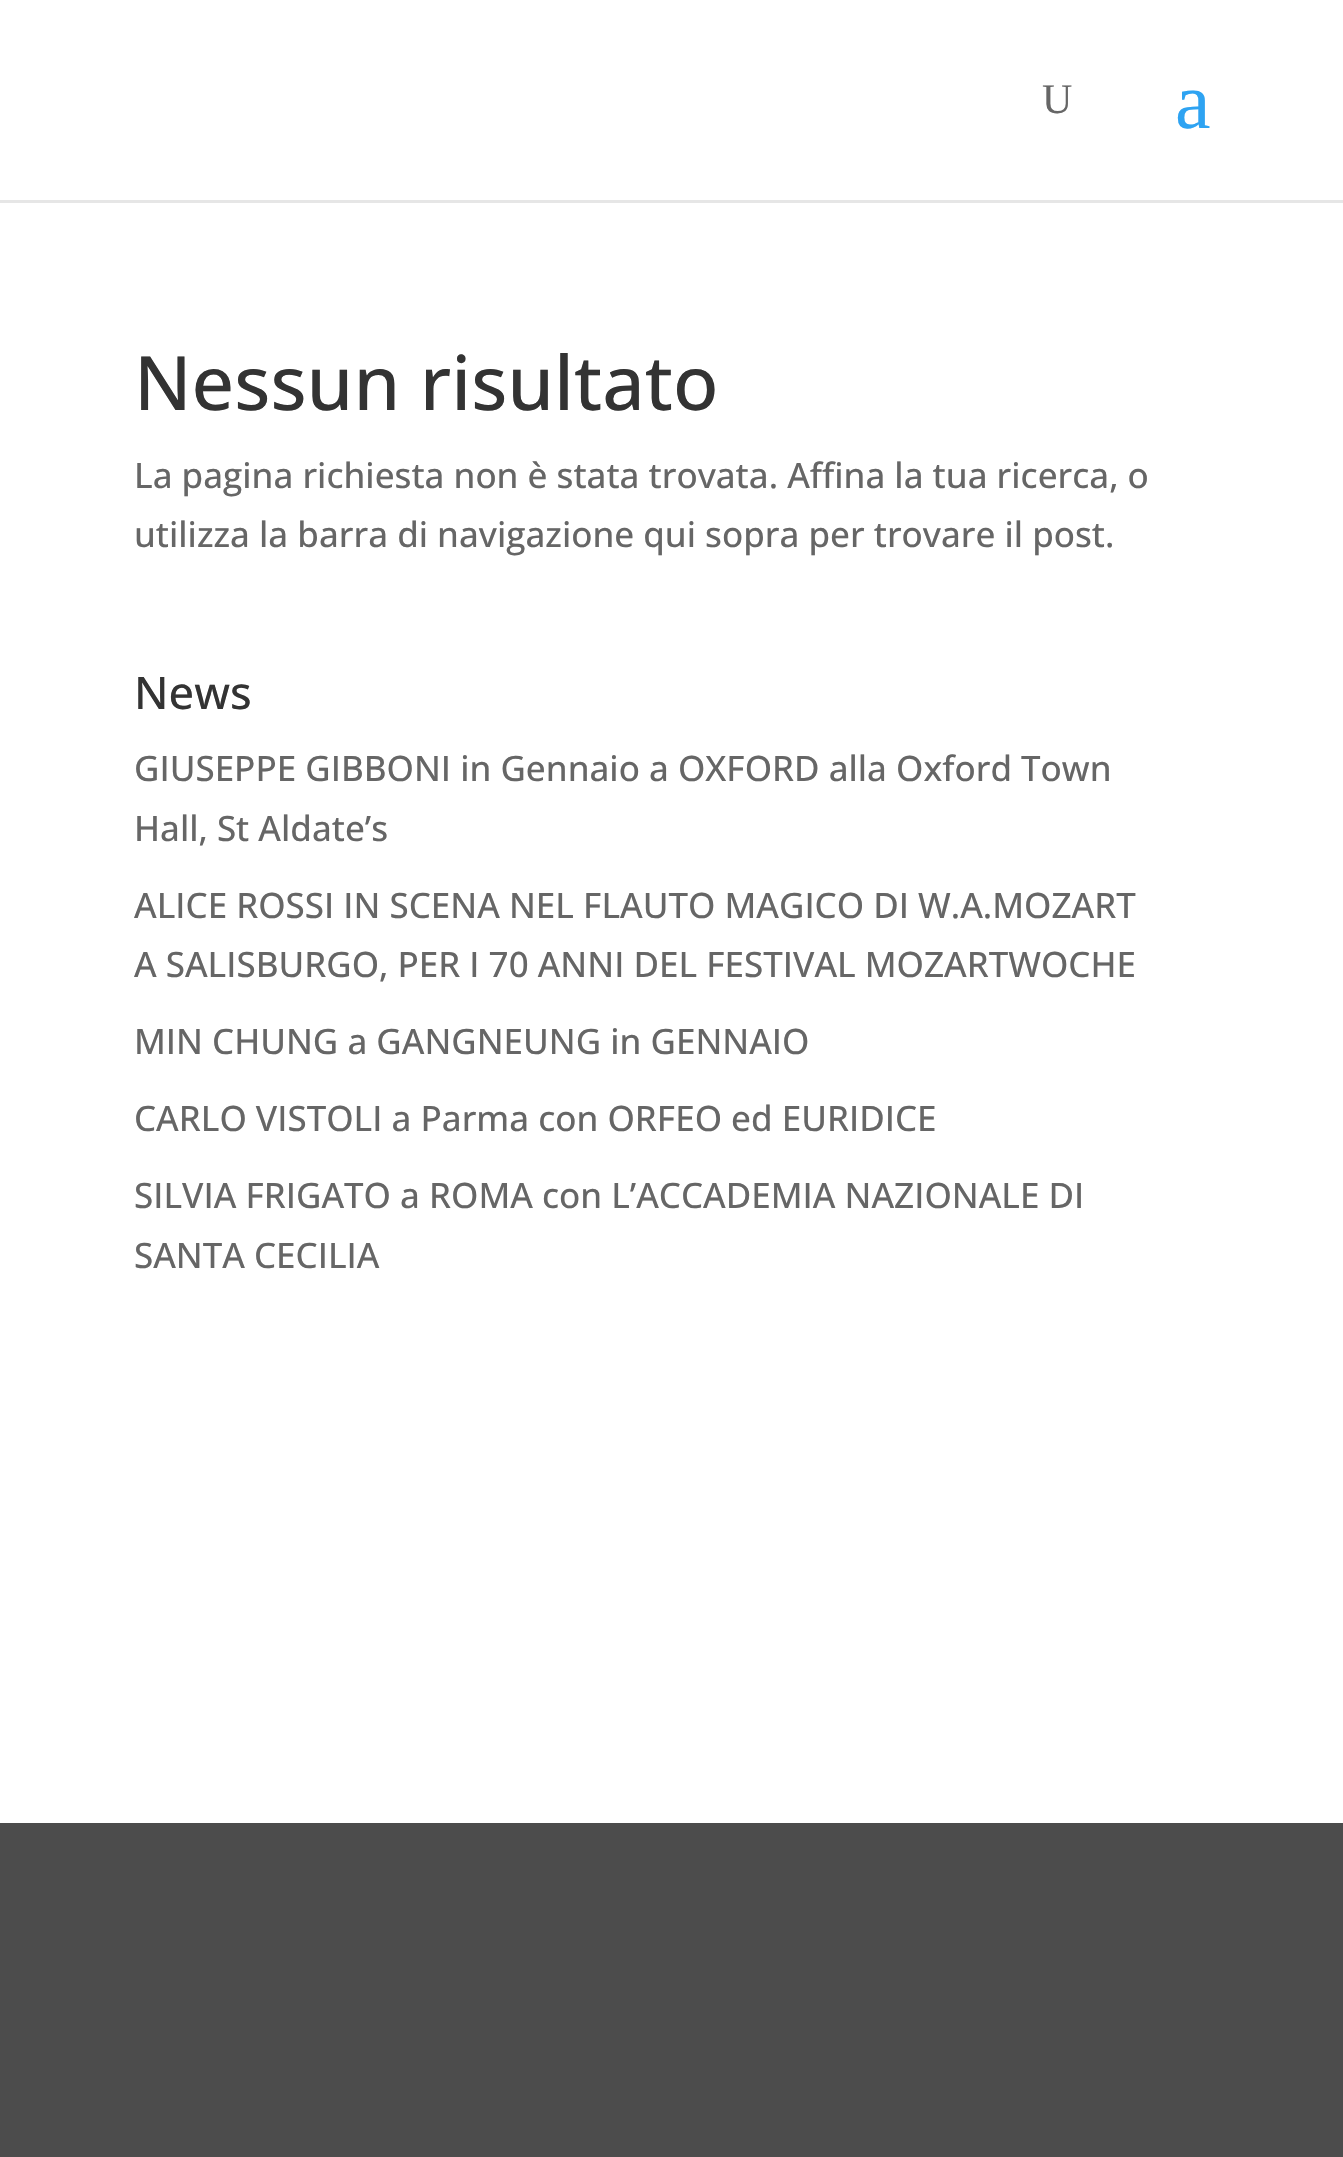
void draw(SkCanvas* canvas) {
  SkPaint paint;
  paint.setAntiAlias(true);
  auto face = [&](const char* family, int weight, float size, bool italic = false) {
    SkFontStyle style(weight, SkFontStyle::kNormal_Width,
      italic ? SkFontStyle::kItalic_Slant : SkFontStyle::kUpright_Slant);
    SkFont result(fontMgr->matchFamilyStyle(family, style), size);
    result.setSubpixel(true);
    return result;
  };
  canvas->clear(0xff4c4c4c);
  {
    const struct { float x, y, w, h; SkColor color; } items[] = {
      {0, 200, 1343, 3, 0xffe6e6e6},
      {0, 0, 1343, 200, 0xffffffff},
      {0, 203, 1343, 1620, 0xffffffff},
    };
    for (auto [x, y, w, h, color] : items) {
      paint.setColor(color);
      canvas->drawRect(SkRect::MakeXYWH(x, y, w, h), paint);
    }
  }
  auto f0 = face("Liberation Serif", 400, 42);
  paint.setColor(0xff666666);
  canvas->drawString("U", 1042, 113, f0, paint);
  auto f1 = face("Liberation Serif", 400, 80);
  paint.setColor(0xff2ea3f2);
  canvas->drawString("a", 1175, 128, f1, paint);
  auto f2 = face("Open Sans", 500, 75);
  paint.setColor(0xff333333);
  canvas->drawString("Nessun risultato", 134, 410, f2, paint);
  auto f3 = face("Open Sans", 500, 35);
  paint.setColor(0xff666666);
  canvas->drawString("La pagina richiesta non è stata trovata. Affina la tua ricerca, o", 134, 488, f3, paint);
  canvas->drawString("utilizza la barra di navigazione qui sopra per trovare il post.", 134, 547, f3, paint);
  auto f4 = face("Open Sans", 500, 45);
  paint.setColor(0xff333333);
  canvas->drawString("News", 134, 709, f4, paint);
  paint.setColor(0xff666666);
  {
    const struct { const char* s; float x, y; } items[] = {
      {"GIUSEPPE GIBBONI in Gennaio a OXFORD alla Oxford Town", 134, 781},
      {"Hall, St Aldate’s", 134, 841},
      {"ALICE ROSSI IN SCENA NEL FLAUTO MAGICO DI W.A.MOZART", 134, 918},
      {"A SALISBURGO, PER I 70 ANNI DEL FESTIVAL MOZARTWOCHE", 134, 977},
      {"MIN CHUNG a GANGNEUNG in GENNAIO", 134, 1054},
      {"CARLO VISTOLI a Parma con ORFEO ed EURIDICE", 134, 1131},
      {"SILVIA FRIGATO a ROMA con L’ACCADEMIA NAZIONALE DI", 134, 1208},
      {"SANTA CECILIA", 134, 1268},
    };
    for (auto [s, x, y] : items) {
      canvas->drawString(s, x, y, f3, paint);
    }
  }
}
